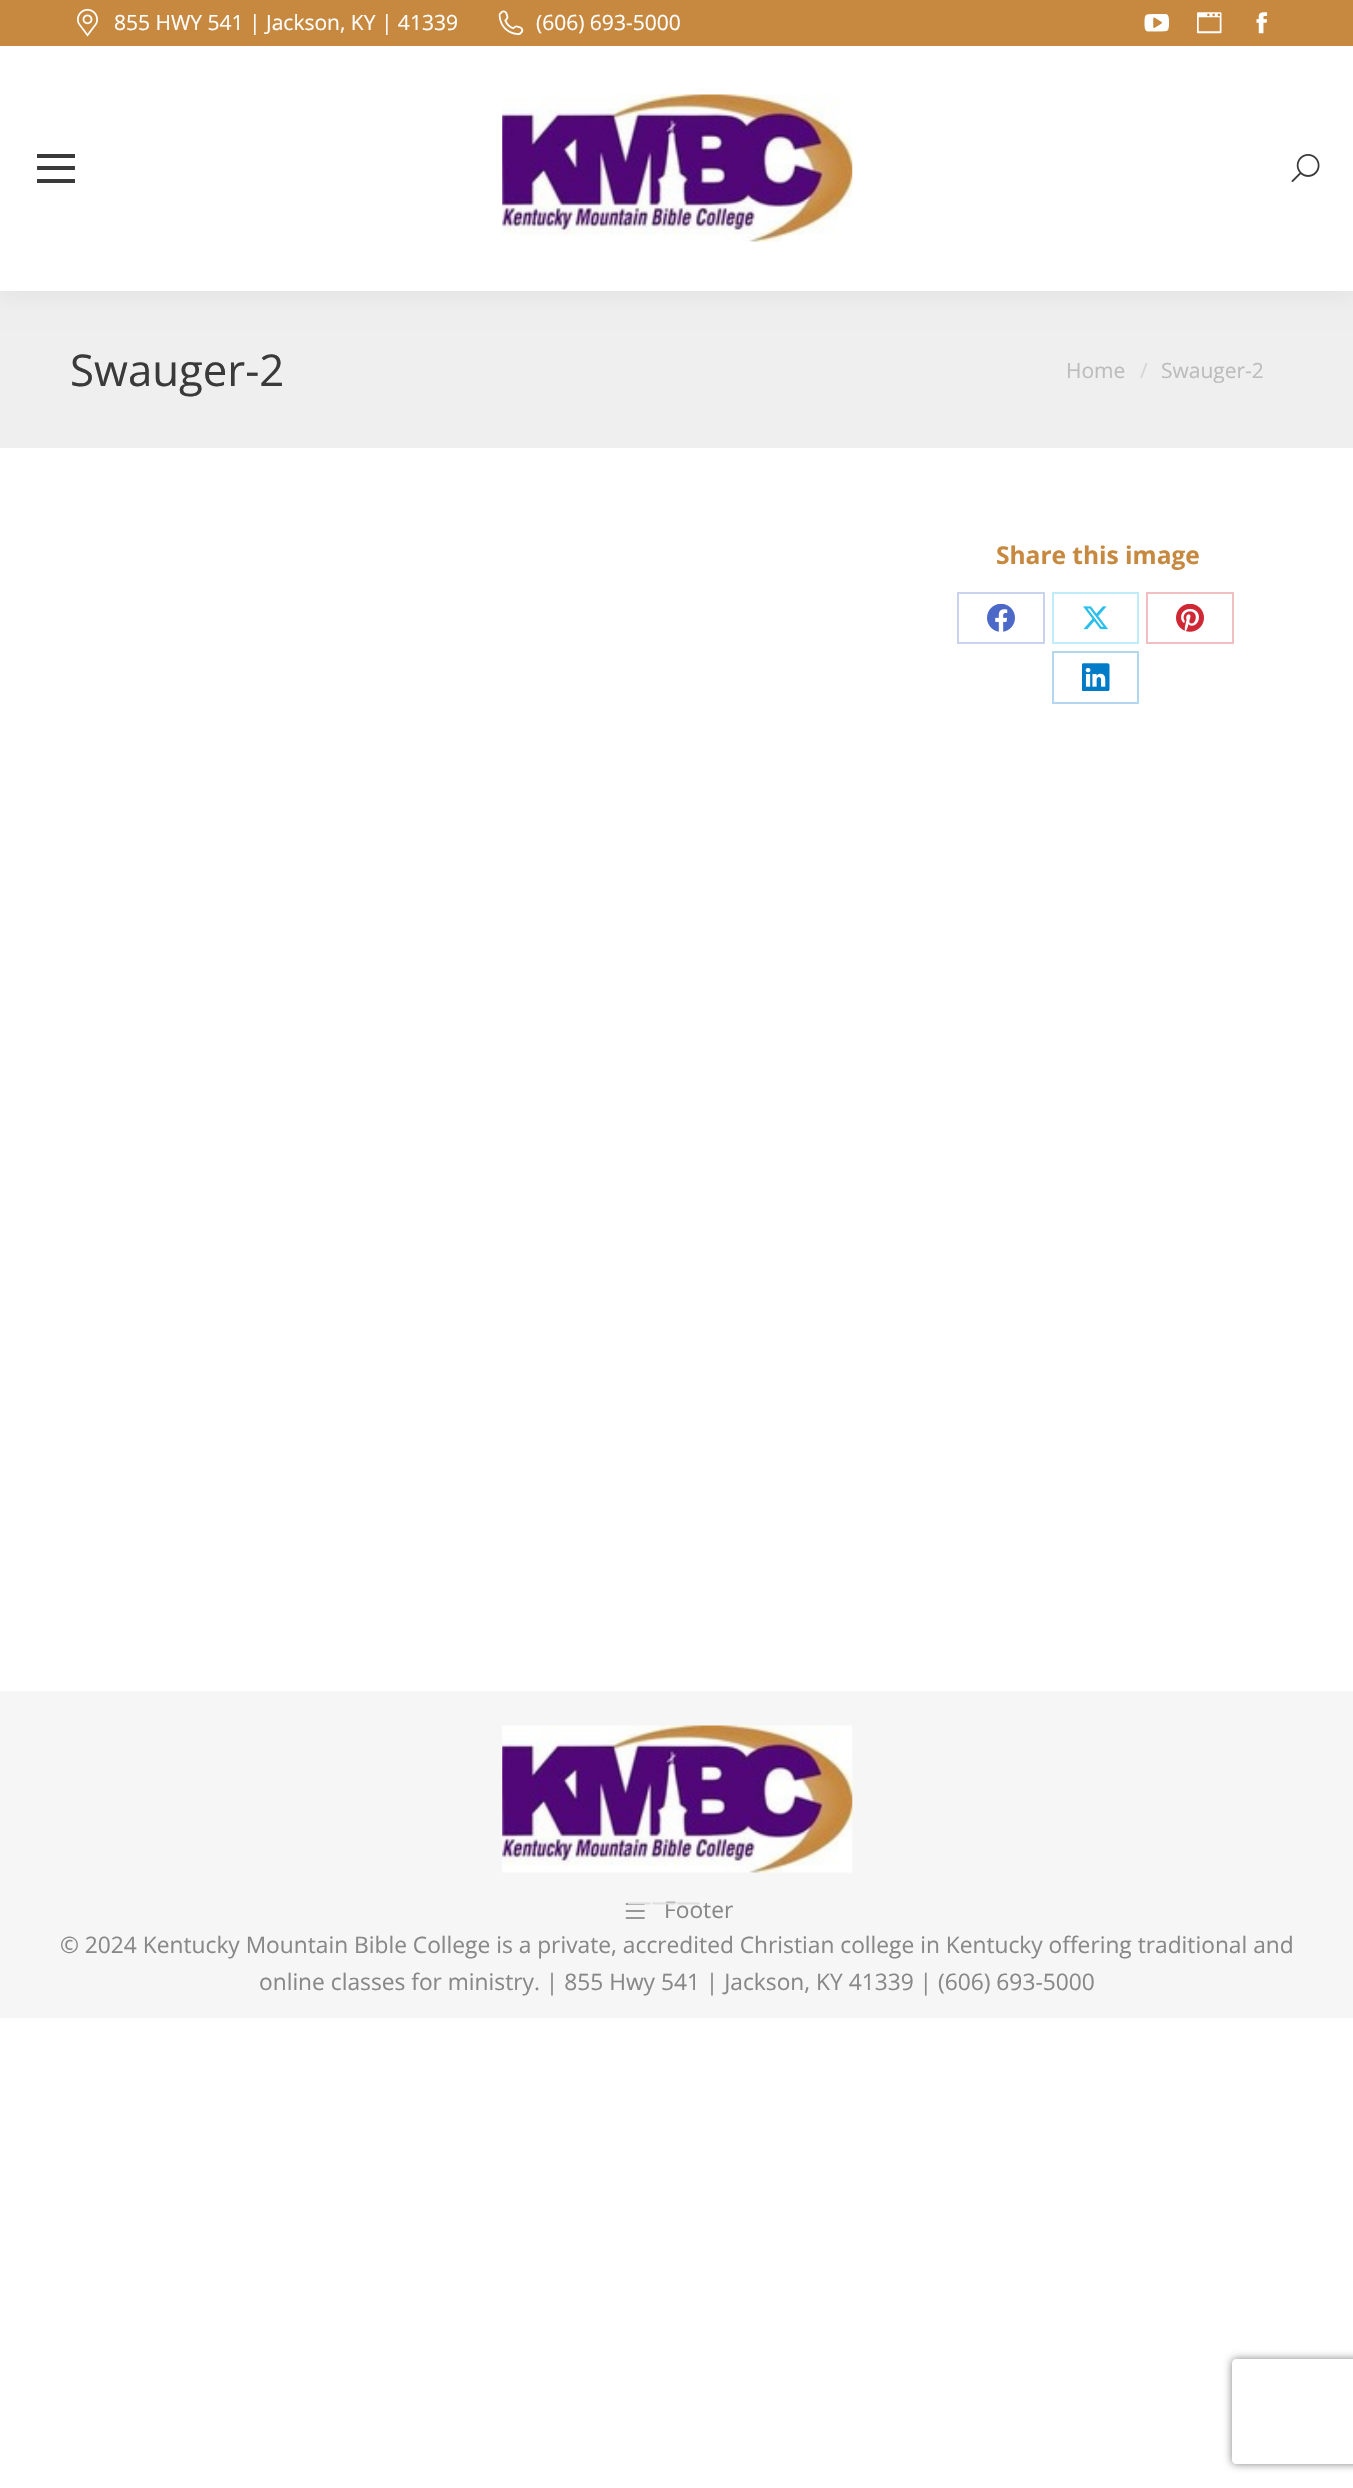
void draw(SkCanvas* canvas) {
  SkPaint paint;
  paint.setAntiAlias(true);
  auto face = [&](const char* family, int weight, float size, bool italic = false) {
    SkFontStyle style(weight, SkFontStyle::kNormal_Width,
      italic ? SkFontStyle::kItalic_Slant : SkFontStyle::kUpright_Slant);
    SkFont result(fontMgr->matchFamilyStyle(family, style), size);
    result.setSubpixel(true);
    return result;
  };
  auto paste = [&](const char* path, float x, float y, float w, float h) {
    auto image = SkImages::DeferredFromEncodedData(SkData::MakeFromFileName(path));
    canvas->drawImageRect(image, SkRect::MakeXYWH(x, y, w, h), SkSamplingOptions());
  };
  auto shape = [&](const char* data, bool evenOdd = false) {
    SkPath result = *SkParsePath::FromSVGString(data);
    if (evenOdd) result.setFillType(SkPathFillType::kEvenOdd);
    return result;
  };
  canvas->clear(0xffffffff);
  paint.setColor(0xffefefef);
  canvas->drawRect(SkRect::MakeXYWH(0, 291, 1353, 157), paint);
  paint.setColor(0x12000000);
  paint.setMaskFilter(SkMaskFilter::MakeBlur(kNormal_SkBlurStyle, 13));
  canvas->drawRect(SkRect::MakeXYWH(-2, -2, 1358, 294), paint);
  paint.setMaskFilter(nullptr);
  paint.setColor(0xffffffff);
  canvas->drawRect(SkRect::MakeXYWH(0, 46, 1353, 245), paint);
  paint.setColor(0xffc6893f);
  canvas->drawRect(SkRect::MakeXYWH(0, 0, 1353, 46), paint);
  paste("img/1.png", 77, 8, 21, 29);
  paste("img/2.png", 498, 10, 26, 25);
  paste("img/3.png", 1144, 14, 25, 18);
  paste("img/4.png", 1197, 12, 25, 22);
  paste("img/5.png", 1256, 12, 12, 22);
  {
    const struct { float x, y, w, h; SkColor color; } items[] = {
      {37, 154, 38, 4, 0xff3a3a3a},
      {37, 166, 38, 4, 0xff3a3a3a},
      {37, 179, 38, 4, 0xff3a3a3a},
    };
    for (auto [x, y, w, h, color] : items) {
      paint.setColor(color);
      canvas->drawRect(SkRect::MakeXYWH(x, y, w, h), paint);
    }
  }
  paste("img/6.png", 502, 94, 351, 148);
  paste("img/7.png", 1291, 154, 29, 28);
  paint.setStroke(true);
  paint.setStrokeWidth(2);
  paint.setColor(0xffc9d2ee);
  canvas->drawRect(SkRect::MakeXYWH(958, 593, 86, 50), paint);
  paste("img/8.png", 987, 604, 28, 28);
  paint.setColor(0xffbfecf9);
  canvas->drawRect(SkRect::MakeXYWH(1053, 593, 85, 50), paint);
  paste("img/9.png", 1083, 606, 25, 24);
  paint.setColor(0xfff1bfc2);
  canvas->drawRect(SkRect::MakeXYWH(1147, 593, 86, 50), paint);
  paste("img/10.png", 1176, 604, 28, 28);
  paint.setColor(0xffb3d7ee);
  canvas->drawRect(SkRect::MakeXYWH(1053, 652, 85, 51), paint);
  paste("img/11.png", 1082, 663, 28, 28);
  paint.setStroke(false);
  paint.setColor(0xfff6f6f6);
  canvas->drawRect(SkRect::MakeXYWH(0, 1691, 1353, 327), paint);
  paste("img/12.png", 502, 1725, 351, 148);
  paste("img/13.png", 625, 1903, 20, 16);
  canvas->save();
  canvas->clipPath(shape("M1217 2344H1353V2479H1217ZM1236 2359H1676C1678 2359 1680 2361 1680 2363V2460C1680 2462 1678 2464 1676 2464H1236C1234 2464 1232 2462 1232 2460V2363C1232 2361 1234 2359 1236 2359Z", true), true);
  paint.setColor(0xff808080);
  paint.setMaskFilter(SkMaskFilter::MakeBlur(kNormal_SkBlurStyle, 4.5f));
  canvas->drawRoundRect(SkRect::MakeXYWH(1232, 2359, 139, 105), 4, 4, paint);
  paint.setMaskFilter(nullptr);
  canvas->restore();
  auto f0 = face("Open Sans", 400, 21);
  paint.setColor(0xffffffff);
  canvas->drawString("855 HWY 541 | Jackson, KY | 41339", 114, 30, f0, paint);
  canvas->drawString("(606) 693-5000", 536, 30, f0, paint);
  auto f1 = face("Open Sans", 400, 43.75f);
  paint.setColor(0xff3a3a3a);
  canvas->drawString("Swauger-2", 70, 386, f1, paint);
  paint.setColor(0xffbcbcbc);
  canvas->drawString("Home", 1066, 378, f0, paint);
  paint.setColor(0xffd6d6d6);
  canvas->drawString("/", 1140, 378, f0, paint);
  paint.setColor(0xffbcbcbc);
  canvas->drawString("Swauger-2", 1161, 378, f0, paint);
  auto f2 = face("Open Sans", 700, 24.5f);
  paint.setColor(0xffc6893f);
  canvas->drawString("Share this image", 996, 564, f2, paint);
  auto f3 = face("Open Sans", 400, 22.75f);
  paint.setColor(0xff888888);
  canvas->drawString("Footer", 664, 1918, f3, paint);
  auto f4 = face("Open Sans", 400, 24.5f);
  paint.setColor(0xffdedede);
  canvas->drawString("———", 627, 1910, f4, paint);
  paint.setColor(0xff888888);
  canvas->drawString("© 2024 Kentucky Mountain Bible College is a private, accredited Christian college in Kentucky offering traditional and", 60, 1953, f3, paint);
  canvas->drawString("online classes for ministry. | 855 Hwy 541 | Jackson, KY 41339 | (606) 693-5000", 259, 1990, f3, paint);
}
